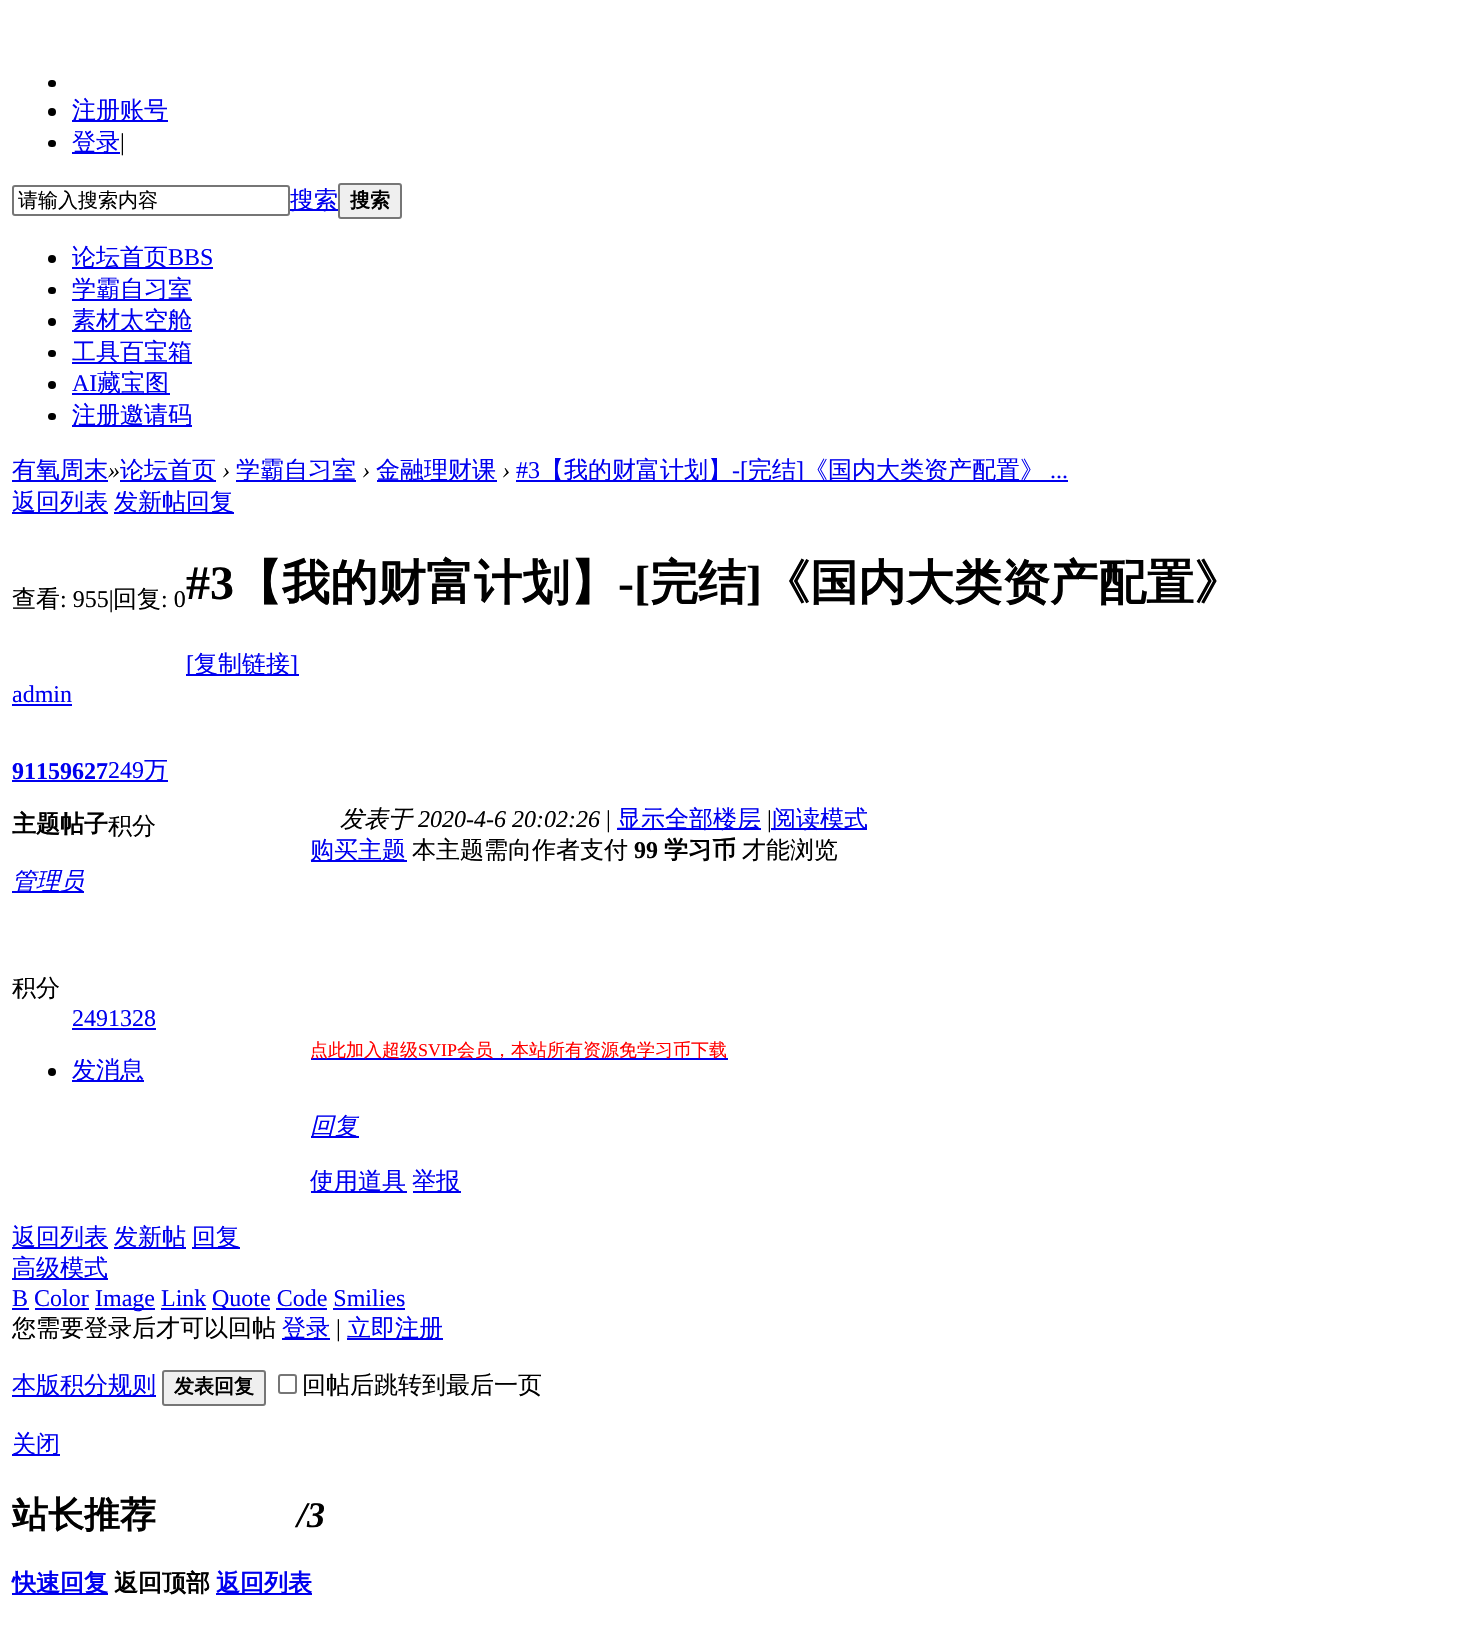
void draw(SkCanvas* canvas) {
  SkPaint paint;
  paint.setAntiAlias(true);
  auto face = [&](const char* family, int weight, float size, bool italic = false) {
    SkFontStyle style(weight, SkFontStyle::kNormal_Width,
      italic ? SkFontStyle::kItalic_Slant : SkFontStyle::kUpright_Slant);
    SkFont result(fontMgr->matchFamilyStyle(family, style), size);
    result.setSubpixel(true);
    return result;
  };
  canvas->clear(0xffffffff);
  paint.setColor(0xff000000);
  canvas->drawRoundRect(SkRect::MakeXYWH(48, 80, 8, 7), 3.5f, 3.5f, paint);
  canvas->drawCircle(52, 112, 4, paint);
  paint.setColor(0xff0000ee);
  canvas->drawRect(SkRect::MakeXYWH(72, 120, 96, 2), paint);
  paint.setColor(0xff000000);
  canvas->drawRoundRect(SkRect::MakeXYWH(48, 140, 8, 7), 3.5f, 3.5f, paint);
  paint.setColor(0xff0000ee);
  canvas->drawRect(SkRect::MakeXYWH(72, 152, 48, 2), paint);
  paint.setStroke(true);
  paint.setStrokeWidth(2);
  paint.setColor(0xff767676);
  canvas->drawRoundRect(SkRect::MakeXYWH(13, 186, 276, 29), 2, 2, paint);
  paint.setStroke(false);
  paint.setColor(0xff0000ee);
  canvas->drawRect(SkRect::MakeXYWH(290, 209, 48, 2), paint);
  paint.setColor(0xffefefef);
  canvas->drawRoundRect(SkRect::MakeXYWH(339, 184, 62, 34), 2, 2, paint);
  paint.setStroke(true);
  paint.setColor(0xff767676);
  canvas->drawRoundRect(SkRect::MakeXYWH(339, 184, 62, 34), 2, 2, paint);
  paint.setStroke(false);
  paint.setColor(0xff000000);
  canvas->drawCircle(52, 259, 4, paint);
  paint.setColor(0xff0000ee);
  canvas->drawRect(SkRect::MakeXYWH(72, 267, 141, 2), paint);
  paint.setColor(0xff000000);
  canvas->drawRoundRect(SkRect::MakeXYWH(48, 287, 8, 7), 3.5f, 3.5f, paint);
  paint.setColor(0xff0000ee);
  canvas->drawRect(SkRect::MakeXYWH(72, 299, 120, 2), paint);
  paint.setColor(0xff000000);
  canvas->drawCircle(52, 322, 4, paint);
  paint.setColor(0xff0000ee);
  canvas->drawRect(SkRect::MakeXYWH(72, 330, 120, 2), paint);
  paint.setColor(0xff000000);
  canvas->drawRoundRect(SkRect::MakeXYWH(48, 350, 8, 7), 3.5f, 3.5f, paint);
  paint.setColor(0xff0000ee);
  canvas->drawRect(SkRect::MakeXYWH(72, 362, 120, 2), paint);
  paint.setColor(0xff000000);
  canvas->drawCircle(52, 385, 4, paint);
  paint.setColor(0xff0000ee);
  canvas->drawRect(SkRect::MakeXYWH(72, 393, 98, 2), paint);
  paint.setColor(0xff000000);
  canvas->drawRoundRect(SkRect::MakeXYWH(48, 413, 8, 7), 3.5f, 3.5f, paint);
  {
    const struct { float x, y, w, h; SkColor color; } items[] = {
      {72, 425, 120, 2, 0xff0000ee},
      {12, 480, 96, 2, 0xff0000ee},
      {120, 480, 96, 2, 0xff0000ee},
      {236, 480, 120, 2, 0xff0000ee},
      {377, 480, 120, 2, 0xff0000ee},
      {516, 480, 552, 2, 0xff0000ee},
      {12, 512, 96, 2, 0xff0000ee},
      {114, 512, 120, 2, 0xff0000ee},
      {186, 674, 113, 2, 0xff0000ee},
      {12, 704, 60, 2, 0xff0000ee},
      {12, 780, 156, 2, 0xff0000ee},
      {12, 891, 72, 2, 0xff0000ee},
      {72, 1028, 84, 2, 0xff0000ee},
    };
    for (auto [x, y, w, h, color] : items) {
      paint.setColor(color);
      canvas->drawRect(SkRect::MakeXYWH(x, y, w, h), paint);
    }
  }
  paint.setColor(0xff000000);
  canvas->drawCircle(52, 1072, 4, paint);
  {
    const struct { float x, y, w, h; SkColor color; } items[] = {
      {72, 1080, 72, 2, 0xff0000ee},
      {617, 828, 144, 2, 0xff0000ee},
      {771, 828, 96, 2, 0xff0000ee},
      {311, 860, 96, 2, 0xff0000ee},
      {311, 1058, 417, 2, 0xff0000ee},
      {311, 1136, 48, 2, 0xff0000ee},
      {311, 1191, 96, 2, 0xff0000ee},
      {413, 1191, 48, 2, 0xff0000ee},
      {12, 1247, 96, 2, 0xff0000ee},
      {114, 1247, 72, 2, 0xff0000ee},
      {192, 1247, 48, 2, 0xff0000ee},
      {12, 1278, 96, 2, 0xff0000ee},
      {12, 1308, 17, 2, 0xff0000ee},
      {95, 1308, 60, 2, 0xff0000ee},
      {212, 1308, 58, 2, 0xff0000ee},
      {35, 1308, 54, 2, 0xff0000ee},
      {161, 1308, 45, 2, 0xff0000ee},
      {276, 1308, 51, 2, 0xff0000ee},
      {333, 1308, 72, 2, 0xff0000ee},
      {282, 1338, 48, 2, 0xff0000ee},
      {347, 1338, 96, 2, 0xff0000ee},
      {12, 1395, 144, 2, 0xff0000ee},
    };
    for (auto [x, y, w, h, color] : items) {
      paint.setColor(color);
      canvas->drawRect(SkRect::MakeXYWH(x, y, w, h), paint);
    }
  }
  paint.setColor(0xffefefef);
  canvas->drawRoundRect(SkRect::MakeXYWH(163, 1371, 102, 34), 2, 2, paint);
  paint.setStroke(true);
  paint.setColor(0xff767676);
  canvas->drawRoundRect(SkRect::MakeXYWH(163, 1371, 102, 34), 2, 2, paint);
  canvas->drawRoundRect(SkRect::MakeXYWH(279, 1375, 17, 18), 2, 2, paint);
  paint.setStroke(false);
  {
    const struct { float x, y, w, h; SkColor color; } items[] = {
      {12, 1454, 48, 2, 0xff0000ee},
      {12, 1593, 96, 2, 0xff0000ee},
      {216, 1593, 96, 2, 0xff0000ee},
    };
    for (auto [x, y, w, h, color] : items) {
      paint.setColor(color);
      canvas->drawRect(SkRect::MakeXYWH(x, y, w, h), paint);
    }
  }
  auto f0 = face("WenQuanYi Zen Hei", 500, 24);
  canvas->drawString("注册账号", 72, 118, f0, paint);
  canvas->drawString("登录", 72, 150, f0, paint);
  auto f1 = face("Liberation Serif", 400, 24);
  paint.setColor(0xff000000);
  canvas->drawString("|", 120, 150, f1, paint);
  auto f2 = face("WenQuanYi Zen Hei", 500, 20);
  canvas->drawString("请输入搜索内容", 18, 207, f2, paint);
  paint.setColor(0xff0000ee);
  canvas->drawString("搜索", 290, 208, f0, paint);
  auto f3 = face("WenQuanYi Zen Hei", 700, 20);
  paint.setColor(0xff000000);
  canvas->drawString("搜索", 350, 207, f3, paint);
  paint.setColor(0xff0000ee);
  canvas->drawString("论坛首页", 72, 265, f0, paint);
  canvas->drawString("BBS", 168, 265, f1, paint);
  {
    const struct { const char* s; float x, y; } items[] = {
      {"学霸自习室", 72, 297},
      {"素材太空舱", 72, 328},
      {"工具百宝箱", 72, 360},
    };
    for (auto [s, x, y] : items) {
      canvas->drawString(s, x, y, f0, paint);
    }
  }
  canvas->drawString("AI", 72, 391, f1, paint);
  {
    const struct { const char* s; float x, y; } items[] = {
      {"藏宝图", 97, 391},
      {"注册邀请码", 72, 423},
      {"有氧周末", 12, 478},
    };
    for (auto [s, x, y] : items) {
      canvas->drawString(s, x, y, f0, paint);
    }
  }
  auto f4 = face("Liberation Serif", 400, 24, true);
  paint.setColor(0xff000000);
  canvas->drawString("»", 108, 478, f4, paint);
  paint.setColor(0xff0000ee);
  canvas->drawString("论坛首页", 120, 478, f0, paint);
  paint.setColor(0xff000000);
  canvas->drawString("›", 222, 478, f4, paint);
  paint.setColor(0xff0000ee);
  canvas->drawString("学霸自习室", 236, 478, f0, paint);
  paint.setColor(0xff000000);
  canvas->drawString("›", 362, 478, f4, paint);
  paint.setColor(0xff0000ee);
  canvas->drawString("金融理财课", 376, 478, f0, paint);
  paint.setColor(0xff000000);
  canvas->drawString("›", 502, 478, f4, paint);
  paint.setColor(0xff0000ee);
  canvas->drawString("#3", 516, 478, f1, paint);
  canvas->drawString("【我的财富计划】", 540, 478, f0, paint);
  canvas->drawString("-[", 732, 478, f1, paint);
  canvas->drawString("完结", 748, 478, f0, paint);
  canvas->drawString("]", 796, 478, f1, paint);
  canvas->drawString("《国内大类资产配置》", 804, 478, f0, paint);
  canvas->drawString("...", 1050, 478, f1, paint);
  canvas->drawString("返回列表", 12, 510, f0, paint);
  canvas->drawString("发新帖回复", 114, 510, f0, paint);
  paint.setColor(0xff000000);
  canvas->drawString("查看", 12, 607, f0, paint);
  canvas->drawString(": 955|", 60, 607, f1, paint);
  canvas->drawString("回复", 113, 607, f0, paint);
  canvas->drawString(": 0", 161, 607, f1, paint);
  auto f5 = face("Liberation Serif", 700, 48);
  canvas->drawString("#3", 186, 599, f5, paint);
  auto f6 = face("WenQuanYi Zen Hei", 700, 48);
  canvas->drawString("【我的财富计划】", 234, 599, f6, paint);
  canvas->drawString("-[", 618, 599, f5, paint);
  canvas->drawString("完结", 650, 599, f6, paint);
  canvas->drawString("]", 746, 599, f5, paint);
  canvas->drawString("《国内大类资产配置》", 762, 599, f6, paint);
  paint.setColor(0xff0000ee);
  canvas->drawString("[", 186, 672, f1, paint);
  canvas->drawString("复制链接", 194, 672, f0, paint);
  canvas->drawString("]", 290, 672, f1, paint);
  canvas->drawString("admin", 12, 702, f1, paint);
  auto f7 = face("Liberation Serif", 700, 24);
  canvas->drawString("91159627", 12, 779, f7, paint);
  auto f8 = face("WenQuanYi Zen Hei", 700, 24);
  paint.setColor(0xff000000);
  canvas->drawString("主题帖子", 12, 832, f8, paint);
  paint.setColor(0xff0000ee);
  canvas->drawString("249", 108, 778, f1, paint);
  canvas->drawString("万", 144, 778, f0, paint);
  paint.setColor(0xff000000);
  canvas->drawString("积分", 108, 834, f0, paint);
  auto f9 = face("WenQuanYi Zen Hei", 500, 24, true);
  paint.setColor(0xff0000ee);
  canvas->drawString("管理员", 12, 889, f9, paint);
  paint.setColor(0xff000000);
  canvas->drawString("积分", 12, 996, f0, paint);
  paint.setColor(0xff0000ee);
  canvas->drawString("2491328", 72, 1026, f1, paint);
  canvas->drawString("发消息", 72, 1078, f0, paint);
  paint.setColor(0xff000000);
  canvas->drawString("发表于", 340, 827, f9, paint);
  canvas->drawString("2020-4-6 20:02:26", 418, 827, f4, paint);
  canvas->drawString("|", 606, 827, f1, paint);
  paint.setColor(0xff0000ee);
  canvas->drawString("显示全部楼层", 617, 827, f0, paint);
  paint.setColor(0xff000000);
  canvas->drawString("|", 767, 827, f1, paint);
  paint.setColor(0xff0000ee);
  canvas->drawString("阅读模式", 772, 827, f0, paint);
  canvas->drawString("购买主题", 310, 858, f0, paint);
  paint.setColor(0xff000000);
  canvas->drawString("本主题需向作者支付", 412, 858, f0, paint);
  canvas->drawString("99", 634, 858, f7, paint);
  canvas->drawString("学习币", 664, 858, f8, paint);
  canvas->drawString("才能浏览", 742, 858, f0, paint);
  auto f10 = face("WenQuanYi Zen Hei", 500, 18);
  paint.setColor(0xffff0000);
  canvas->drawString("点此加入超级", 310, 1056, f10, paint);
  auto f11 = face("Liberation Serif", 400, 18);
  canvas->drawString("SVIP", 418, 1056, f11, paint);
  canvas->drawString("会员，本站所有资源免学习币下载", 457, 1056, f10, paint);
  paint.setColor(0xff0000ee);
  canvas->drawString("回复", 310, 1134, f9, paint);
  {
    const struct { const char* s; float x, y; } items[] = {
      {"使用道具", 310, 1189},
      {"举报", 412, 1189},
      {"返回列表", 12, 1245},
      {"发新帖", 114, 1245},
      {"回复", 192, 1245},
      {"高级模式", 12, 1276},
    };
    for (auto [s, x, y] : items) {
      canvas->drawString(s, x, y, f0, paint);
    }
  }
  {
    const struct { const char* s; float x, y; } items[] = {
      {"B Color", 12, 1306},
      {"Image Link", 95, 1306},
      {"Quote Code Smilies", 212, 1306},
    };
    for (auto [s, x, y] : items) {
      canvas->drawString(s, x, y, f1, paint);
    }
  }
  paint.setColor(0xff000000);
  canvas->drawString("您需要登录后才可以回帖", 12, 1336, f0, paint);
  paint.setColor(0xff0000ee);
  canvas->drawString("登录", 282, 1336, f0, paint);
  paint.setColor(0xff000000);
  canvas->drawString("|", 336, 1336, f1, paint);
  paint.setColor(0xff0000ee);
  canvas->drawString("立即注册", 347, 1336, f0, paint);
  canvas->drawString("本版积分规则", 12, 1393, f0, paint);
  paint.setColor(0xff000000);
  canvas->drawString("发表回复", 174, 1393, f3, paint);
  canvas->drawString("回帖后跳转到最后一页", 302, 1393, f0, paint);
  paint.setColor(0xff0000ee);
  canvas->drawString("关闭", 12, 1452, f0, paint);
  auto f12 = face("WenQuanYi Zen Hei", 700, 36);
  paint.setColor(0xff000000);
  canvas->drawString("站长推荐", 12, 1527, f12, paint);
  auto f13 = face("Liberation Serif", 700, 36, true);
  canvas->drawString("/3", 297, 1527, f13, paint);
  paint.setColor(0xff0000ee);
  canvas->drawString("快速回复", 12, 1591, f8, paint);
  paint.setColor(0xff000000);
  canvas->drawString("返回顶部", 114, 1591, f8, paint);
  paint.setColor(0xff0000ee);
  canvas->drawString("返回列表", 216, 1591, f8, paint);
}
